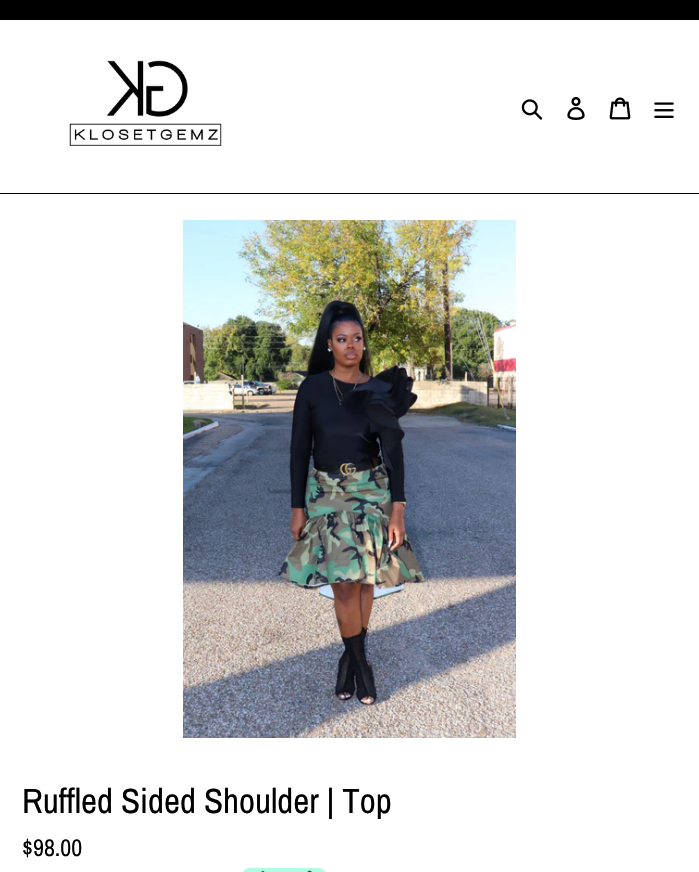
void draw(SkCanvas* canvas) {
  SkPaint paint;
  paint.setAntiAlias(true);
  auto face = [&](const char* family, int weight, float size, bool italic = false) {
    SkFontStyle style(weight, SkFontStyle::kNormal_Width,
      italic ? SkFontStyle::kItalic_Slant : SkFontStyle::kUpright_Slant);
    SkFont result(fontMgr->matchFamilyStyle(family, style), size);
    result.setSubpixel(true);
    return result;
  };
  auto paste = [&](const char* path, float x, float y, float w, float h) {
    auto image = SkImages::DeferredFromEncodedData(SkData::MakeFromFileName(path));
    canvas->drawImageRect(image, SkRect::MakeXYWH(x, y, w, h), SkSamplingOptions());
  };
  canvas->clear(0xffffffff);
  paint.setColor(0xff000000);
  canvas->drawRect(SkRect::MakeXYWH(0, 0, 699, 20), paint);
  canvas->drawRect(SkRect::MakeXYWH(0, 193, 699, 1), paint);
  paste("img/1.png", 69, 60, 153, 86);
  paste("img/2.png", 521, 99, 22, 21);
  paste("img/3.png", 567, 97, 18, 23);
  paste("img/4.png", 609, 97, 22, 23);
  paste("img/5.png", 654, 102, 20, 16);
  paste("img/6.png", 183, 220, 333, 518);
  paste("img/7.png", 242, 868, 84, 4);
  auto f0 = face("Archivo Narrow", 400, 35);
  canvas->drawString("Ruffled Sided Shoulder | Top", 22, 813, f0, paint);
  auto f1 = face("Archivo Narrow", 400, 24);
  canvas->drawString("$98.00", 22, 856, f1, paint);
}
